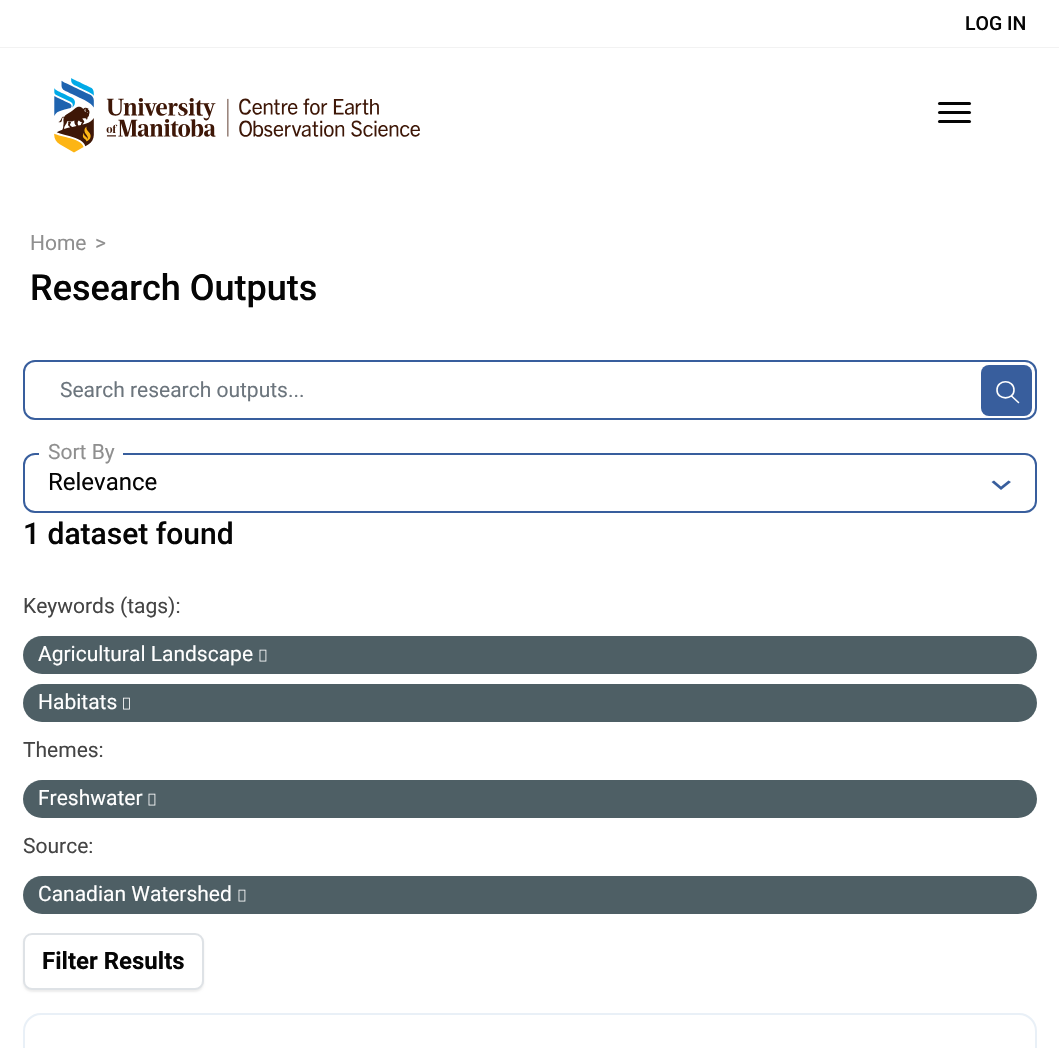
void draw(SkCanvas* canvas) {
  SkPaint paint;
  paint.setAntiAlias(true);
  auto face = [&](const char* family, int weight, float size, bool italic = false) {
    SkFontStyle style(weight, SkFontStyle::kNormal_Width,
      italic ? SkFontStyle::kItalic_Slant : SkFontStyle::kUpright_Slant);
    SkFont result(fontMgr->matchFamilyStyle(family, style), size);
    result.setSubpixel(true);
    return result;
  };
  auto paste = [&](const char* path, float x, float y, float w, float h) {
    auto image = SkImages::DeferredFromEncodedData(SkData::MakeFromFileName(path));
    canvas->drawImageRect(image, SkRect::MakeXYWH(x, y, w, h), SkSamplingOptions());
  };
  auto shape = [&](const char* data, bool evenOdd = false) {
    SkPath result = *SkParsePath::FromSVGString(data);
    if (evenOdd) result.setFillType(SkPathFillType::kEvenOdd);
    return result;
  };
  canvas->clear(0xffffffff);
  paint.setColor(0xfff2f2f2);
  canvas->drawRect(SkRect::MakeXYWH(0, 47, 1059, 1), paint);
  paste("img/1.png", 54, 78, 366, 75);
  paint.setColor(0xff050505);
  canvas->drawRoundRect(SkRect::MakeXYWH(938, 102, 33, 3), 1.5f, 1.5f, paint);
  canvas->drawRoundRect(SkRect::MakeXYWH(938, 111, 33, 3), 1.5f, 1.5f, paint);
  canvas->drawRoundRect(SkRect::MakeXYWH(938, 120, 33, 3), 1.5f, 1.5f, paint);
  paint.setStroke(true);
  paint.setStrokeWidth(2);
  paint.setColor(0xff385e9d);
  canvas->drawRoundRect(SkRect::MakeXYWH(24, 361, 1012, 58), 11, 11, paint);
  paint.setStroke(false);
  canvas->drawRoundRect(SkRect::MakeXYWH(981, 365, 51, 51), 8, 8, paint);
  paint.setStroke(true);
  paint.setStrokeWidth(1.6f);
  paint.setStrokeCap(SkPaint::kRound_Cap);
  paint.setColor(0xffffffff);
  canvas->drawPath(shape("M1014 390C1014 400.5 997 400.5 997 390C997 379 1014 379 1014 390ZM1011.5 396L1018.5 402.5"), paint);
  paint.setStrokeWidth(2);
  paint.setStrokeCap(SkPaint::kButt_Cap);
  paint.setColor(0xff385e9d);
  canvas->drawRoundRect(SkRect::MakeXYWH(24, 454, 1012, 58), 11, 11, paint);
  paint.setStroke(false);
  paint.setColor(0xffffffff);
  canvas->drawRect(SkRect::MakeXYWH(39, 453, 84, 2), paint);
  paint.setColor(0xff385e9d);
  canvas->drawPath(shape("M991.5 482L994 480.5L1001 486.5L1008.5 480.5L1011 482L1001 490Z"), paint);
  paint.setColor(0xff4e5f65);
  canvas->drawRoundRect(SkRect::MakeXYWH(23, 636, 1014, 38), 19, 19, paint);
  paste("img/2.png", 259, 649, 8, 13);
  canvas->drawRoundRect(SkRect::MakeXYWH(23, 684, 1014, 38), 19, 19, paint);
  paste("img/3.png", 123, 697, 7, 13);
  canvas->drawRoundRect(SkRect::MakeXYWH(23, 780, 1014, 38), 19, 19, paint);
  paste("img/2.png", 148, 793, 8, 13);
  canvas->drawRoundRect(SkRect::MakeXYWH(23, 876, 1014, 38), 19, 19, paint);
  paste("img/2.png", 238, 889, 8, 13);
  paint.setColor(0x12000000);
  paint.setMaskFilter(SkMaskFilter::MakeBlur(kNormal_SkBlurStyle, 1));
  canvas->drawRoundRect(SkRect::MakeXYWH(23, 935, 181, 57), 9, 9, paint);
  paint.setMaskFilter(nullptr);
  paint.setColor(0xffffffff);
  canvas->drawRoundRect(SkRect::MakeXYWH(24, 934, 179, 55), 8, 8, paint);
  paint.setStroke(true);
  paint.setColor(0xffdee2e6);
  canvas->drawRoundRect(SkRect::MakeXYWH(24, 934, 179, 55), 8, 8, paint);
  paint.setColor(0xffe9f0f7);
  canvas->drawRoundRect(SkRect::MakeXYWH(24, 1014, 1012, 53), 17, 17, paint);
  auto f0 = face("Roboto", 500, 19.5f);
  paint.setStroke(false);
  paint.setColor(0xff050505);
  canvas->drawString("LOG IN", 965, 30, f0, paint);
  auto f1 = face("Roboto", 400, 21);
  paint.setColor(0xff8f8f8f);
  canvas->drawString("Home", 30, 250, f1, paint);
  canvas->drawString(">", 95, 250, f1, paint);
  auto f2 = face("Roboto", 500, 36);
  paint.setColor(0xff050505);
  canvas->drawString("Research Outputs", 30, 300, f2, paint);
  paint.setColor(0xff6c757d);
  canvas->drawString("Search research outputs...", 60, 397, f1, paint);
  paint.setColor(0xff8f8f8f);
  canvas->drawString("Sort By", 48, 459, f1, paint);
  auto f3 = face("Roboto", 400, 24);
  paint.setColor(0xff050505);
  canvas->drawString("Relevance", 48, 490, f3, paint);
  auto f4 = face("Roboto", 500, 30);
  canvas->drawString("1 dataset found", 23, 544, f4, paint);
  paint.setColor(0xff444444);
  canvas->drawString("Keywords (tags):", 23, 613, f1, paint);
  paint.setColor(0xffffffff);
  canvas->drawString("Agricultural Landscape", 38, 661, f1, paint);
  canvas->drawString("Habitats", 38, 709, f1, paint);
  paint.setColor(0xff444444);
  canvas->drawString("Themes:", 23, 757, f1, paint);
  paint.setColor(0xffffffff);
  canvas->drawString("Freshwater", 38, 805, f1, paint);
  paint.setColor(0xff444444);
  canvas->drawString("Source:", 23, 853, f1, paint);
  paint.setColor(0xffffffff);
  canvas->drawString("Canadian Watershed", 38, 901, f1, paint);
  auto f5 = face("Roboto", 700, 24);
  paint.setColor(0xff050505);
  canvas->drawString("Filter Results", 42, 969, f5, paint);
}
